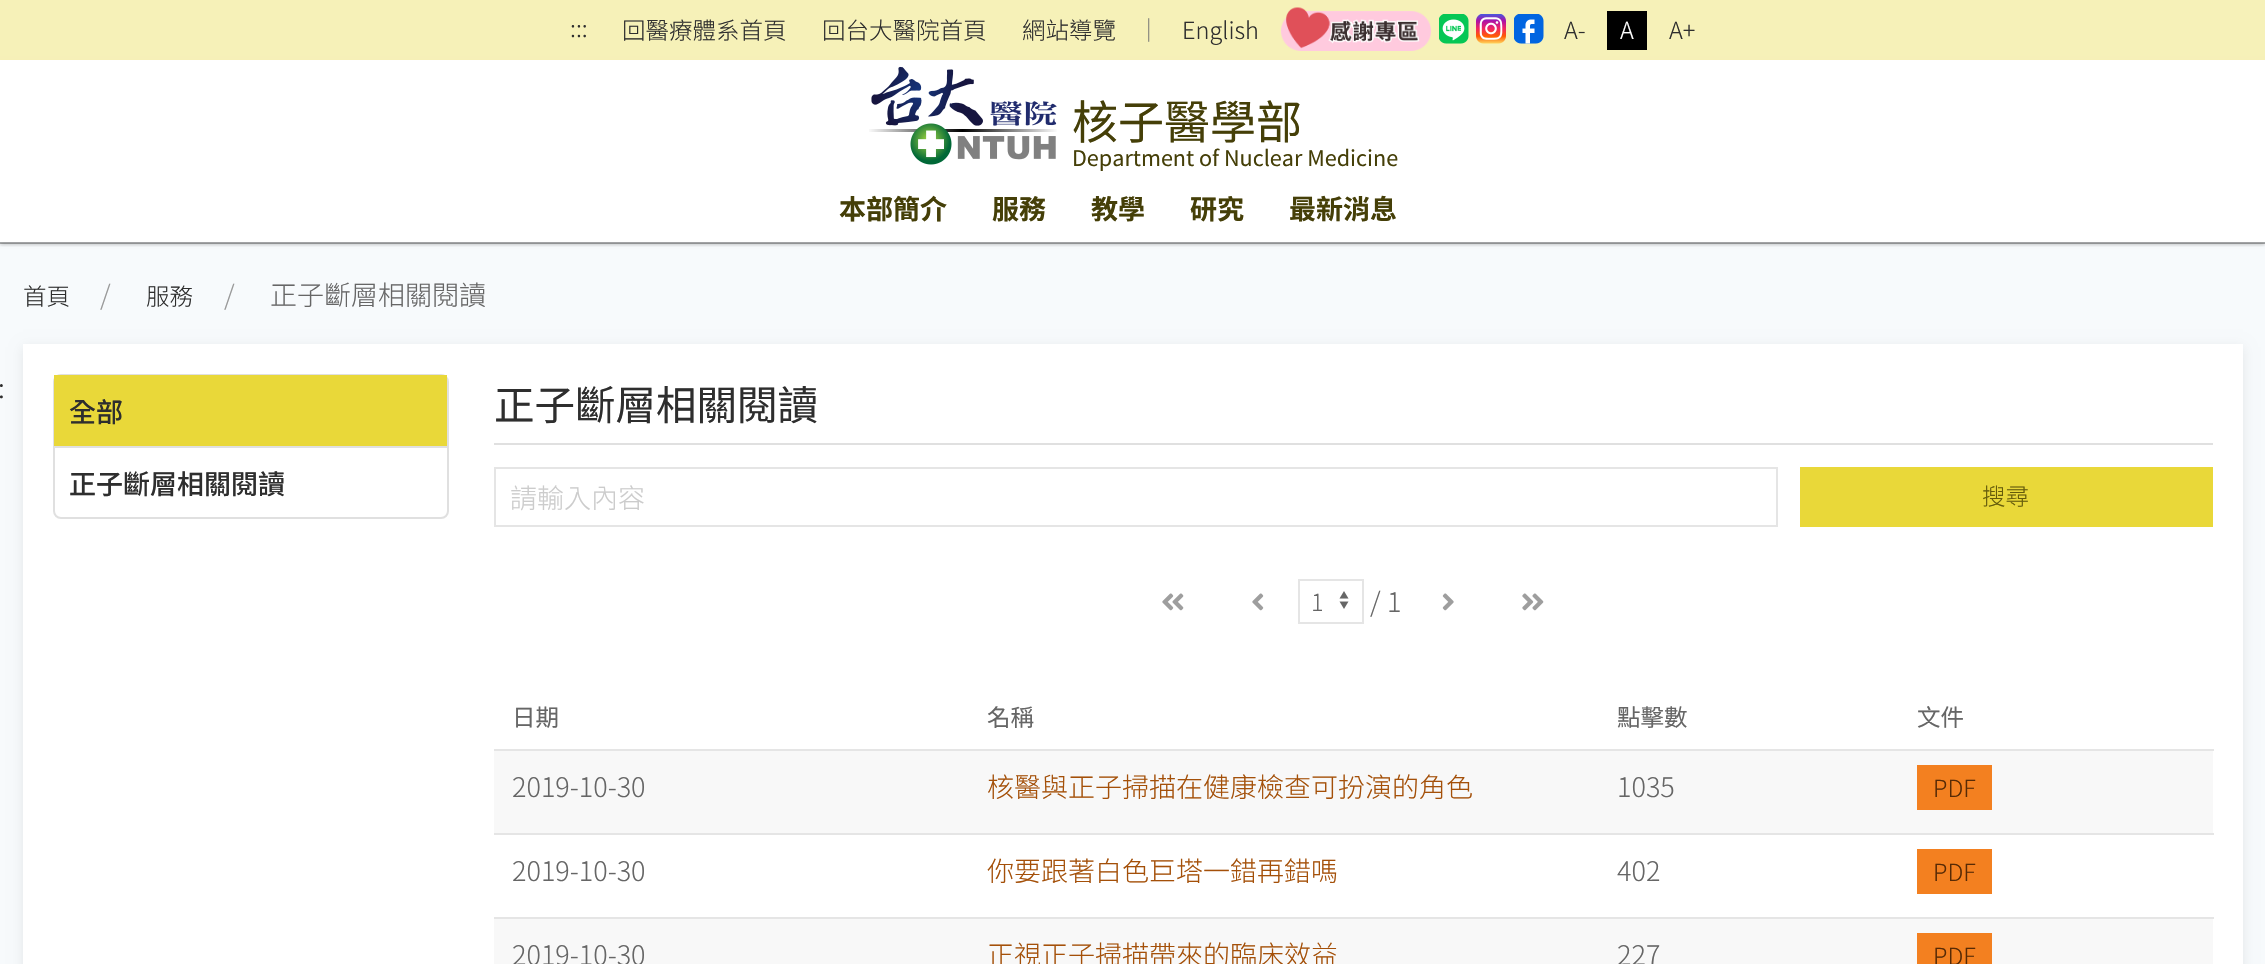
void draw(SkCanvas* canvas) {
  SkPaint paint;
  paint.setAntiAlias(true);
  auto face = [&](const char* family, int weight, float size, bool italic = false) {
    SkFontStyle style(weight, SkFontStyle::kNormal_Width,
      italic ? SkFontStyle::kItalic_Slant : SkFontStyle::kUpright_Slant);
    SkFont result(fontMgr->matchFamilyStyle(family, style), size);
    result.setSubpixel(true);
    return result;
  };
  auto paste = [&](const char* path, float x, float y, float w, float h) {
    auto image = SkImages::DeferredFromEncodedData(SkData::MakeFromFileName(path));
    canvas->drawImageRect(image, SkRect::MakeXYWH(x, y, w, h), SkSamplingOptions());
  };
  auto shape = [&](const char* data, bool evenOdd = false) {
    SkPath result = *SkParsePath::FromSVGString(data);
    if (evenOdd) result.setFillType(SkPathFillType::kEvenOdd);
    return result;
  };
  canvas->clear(0xfff7fafc);
  canvas->save();
  canvas->clipRect(SkRect::MakeXYWH(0, 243, 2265, 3));
  paint.setColor(0x0f000000);
  paint.setMaskFilter(SkMaskFilter::MakeBlur(kNormal_SkBlurStyle, 1.5f));
  canvas->drawRect(SkRect::MakeXYWH(0, 2, 2265, 243), paint);
  paint.setMaskFilter(nullptr);
  canvas->restore();
  canvas->save();
  canvas->clipRect(SkRect::MakeXYWH(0, 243, 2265, 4));
  paint.setColor(0x1a000000);
  paint.setMaskFilter(SkMaskFilter::MakeBlur(kNormal_SkBlurStyle, 2));
  canvas->drawRect(SkRect::MakeXYWH(0, 2, 2265, 243), paint);
  paint.setMaskFilter(nullptr);
  canvas->restore();
  canvas->save();
  canvas->clipPath(shape("M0 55H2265V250H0ZM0 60H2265V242H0Z", true), true);
  paint.setMaskFilter(SkMaskFilter::MakeBlur(kNormal_SkBlurStyle, 2));
  canvas->drawRect(SkRect::MakeXYWH(0, 62, 2265, 181), paint);
  paint.setMaskFilter(nullptr);
  canvas->restore();
  paint.setColor(0xd9f6efac);
  canvas->drawRect(SkRect::MakeXYWH(0, 0, 2265, 60), paint);
  paste("img/1.png", 1281, 7, 150, 44);
  paste("img/2.png", 1439, 14, 30, 30);
  paste("img/3.png", 1476, 14, 30, 30);
  paste("img/4.png", 1514, 14, 30, 30);
  paint.setColor(0xff000000);
  canvas->drawRect(SkRect::MakeXYWH(1607, 11, 40, 39), paint);
  paint.setColor(0xe6ffffff);
  canvas->drawRect(SkRect::MakeXYWH(0, 60, 2265, 182), paint);
  paste("img/5.png", 869, 66, 188, 99);
  paint.setColor(0x4d000000);
  canvas->drawRect(SkRect::MakeXYWH(0, 242, 2265, 2), paint);
  paint.setColor(0x14000000);
  paint.setMaskFilter(SkMaskFilter::MakeBlur(kNormal_SkBlurStyle, 6));
  canvas->drawRect(SkRect::MakeXYWH(23, 347, 2220, 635), paint);
  paint.setMaskFilter(nullptr);
  paint.setColor(0xffffffff);
  canvas->drawRect(SkRect::MakeXYWH(23, 344, 2220, 620), paint);
  paint.setStroke(true);
  paint.setStrokeWidth(2);
  paint.setColor(0xffe0e0e0);
  canvas->drawPath(shape("M61 375H441C445 375 448 378 448 382V446H54V382C54 378 57 375 61 375Z"), paint);
  paint.setStroke(false);
  paint.setColor(0xffe9d839);
  canvas->drawRect(SkRect::MakeXYWH(54, 375, 393, 71), paint);
  paint.setColor(0xffffffff);
  canvas->drawPath(shape("M54 447H448V511C448 515 445 518 441 518H61C57 518 54 515 54 511Z"), paint);
  paint.setStroke(true);
  paint.setColor(0xffe0e0e0);
  canvas->drawPath(shape("M54 447H448V511C448 515 445 518 441 518H61C57 518 54 515 54 511Z"), paint);
  paint.setStroke(false);
  canvas->drawRect(SkRect::MakeXYWH(494, 443, 1719, 2), paint);
  paint.setStroke(true);
  paint.setColor(0xffe5e5e5);
  canvas->drawRect(SkRect::MakeXYWH(495, 468, 1282, 58), paint);
  paint.setStroke(false);
  paint.setColor(0xffe9d839);
  canvas->drawRect(SkRect::MakeXYWH(1800, 467, 413, 60), paint);
  paste("img/6.png", 1162, 593, 22, 18);
  paste("img/7.png", 1252, 593, 12, 18);
  paste("img/8.png", 1339, 591, 10, 18);
  paint.setStroke(true);
  paint.setColor(0xffe5e5e5);
  canvas->drawRect(SkRect::MakeXYWH(1299, 580, 64, 43), paint);
  paste("img/9.png", 1442, 593, 12, 18);
  paste("img/10.png", 1522, 593, 22, 18);
  paint.setStroke(false);
  {
    const struct { float x, y, w, h; SkColor color; } items[] = {
      {494, 751, 1719, 82, 0xfff8f8f8},
      {494, 749, 1720, 2, 0xffe5e5e5},
      {494, 833, 1720, 2, 0xffe5e5e5},
      {1917, 765, 75, 45, 0xfff38020},
      {1917, 849, 75, 45, 0xfff38020},
      {494, 919, 1719, 45, 0xfff8f8f8},
      {494, 917, 1720, 2, 0xffe5e5e5},
      {1917, 933, 75, 31, 0xfff38020},
    };
    for (auto [x, y, w, h, color] : items) {
      paint.setColor(color);
      canvas->drawRect(SkRect::MakeXYWH(x, y, w, h), paint);
    }
  }
  auto f0 = face("Noto Sans TC", 300, 23.5f);
  paint.setColor(0xff2e2e2e);
  {
    const struct { const char* s; float x, y; } items[] = {
      {":::", 570, 37},
      {"回醫療體系首頁", 622, 39},
      {"回台大醫院首頁", 822, 39},
      {"網站導覽", 1022, 39},
    };
    for (auto [s, x, y] : items) {
      canvas->drawString(s, x, y, f0, paint);
    }
  }
  paint.setColor(0xff757575);
  canvas->drawString("｜", 1137, 39, f0, paint);
  paint.setColor(0xff2e2e2e);
  canvas->drawString("English", 1182, 39, f0, paint);
  canvas->drawString("A-", 1564, 39, f0, paint);
  paint.setColor(0xffffffff);
  canvas->drawString("A", 1620, 39, f0, paint);
  paint.setColor(0xff2e2e2e);
  canvas->drawString("A+", 1669, 39, f0, paint);
  auto f1 = face("Noto Sans TC", 400, 46);
  paint.setColor(0xff453f08);
  canvas->drawString("核子醫學部", 1072, 139, f1, paint);
  auto f2 = face("Noto Sans TC", 400, 21.6f);
  canvas->drawString("Department of Nuclear Medicine", 1072, 166, f2, paint);
  auto f3 = face("Noto Sans TC", 700, 27);
  {
    const struct { const char* s; float x, y; } items[] = {
      {"本部簡介", 839, 219},
      {"服務", 992, 219},
      {"教學", 1091, 219},
      {"研究", 1190, 219},
      {"最新消息", 1289, 219},
    };
    for (auto [s, x, y] : items) {
      canvas->drawString(s, x, y, f3, paint);
    }
  }
  paint.setColor(0xff2e2e2e);
  canvas->drawString("首頁", 23, 305, f0, paint);
  auto f4 = face("Noto Sans TC", 300, 27);
  paint.setColor(0xff999999);
  canvas->drawString("/", 100, 305, f4, paint);
  paint.setColor(0xff2e2e2e);
  canvas->drawString("服務", 146, 305, f0, paint);
  paint.setColor(0xff999999);
  canvas->drawString("/", 224, 305, f4, paint);
  paint.setColor(0xff666666);
  canvas->drawString("正子斷層相關閱讀", 270, 305, f4, paint);
  paint.setColor(0xff2e2e2e);
  canvas->drawString(":", -2, 398, f4, paint);
  auto f5 = face("Noto Sans TC", 500, 27);
  canvas->drawString("全部", 69, 422, f5, paint);
  canvas->drawString("正子斷層相關閱讀", 69, 494, f5, paint);
  auto f6 = face("Noto Sans TC", 400, 40.5f);
  canvas->drawString("正子斷層相關閱讀", 494, 420, f6, paint);
  paint.setColor(0xffcccccc);
  canvas->drawString("請輸入內容", 510, 508, f4, paint);
  paint.setColor(0xff655c0b);
  canvas->drawString("搜尋", 1982, 505, f0, paint);
  paint.setColor(0xff666666);
  canvas->drawString("1", 1311, 611, f0, paint);
  canvas->drawString("/", 1370, 612, f4, paint);
  canvas->drawString("1", 1387, 612, f4, paint);
  auto f7 = face("Noto Sans TC", 400, 23.5f);
  {
    const struct { const char* s; float x, y; } items[] = {
      {"日期", 512, 726},
      {"名稱", 987, 726},
      {"點擊數", 1617, 726},
      {"文件", 1917, 726},
    };
    for (auto [s, x, y] : items) {
      canvas->drawString(s, x, y, f7, paint);
    }
  }
  canvas->drawString("2019-10-30", 512, 797, f4, paint);
  paint.setColor(0xffa45009);
  canvas->drawString("核醫與正子掃描在健康檢查可扮演的角色", 987, 797, f4, paint);
  paint.setColor(0xff666666);
  canvas->drawString("1035", 1617, 797, f4, paint);
  paint.setColor(0xff572a05);
  canvas->drawString("PDF", 1933, 797, f0, paint);
  paint.setColor(0xff666666);
  canvas->drawString("2019-10-30", 512, 881, f4, paint);
  paint.setColor(0xffa45009);
  canvas->drawString("你要跟著白色巨塔一錯再錯嗎", 987, 881, f4, paint);
  paint.setColor(0xff666666);
  canvas->drawString("402", 1617, 881, f4, paint);
  paint.setColor(0xff572a05);
  canvas->drawString("PDF", 1933, 881, f0, paint);
  paint.setColor(0xff666666);
  canvas->drawString("2019-10-30", 512, 965, f4, paint);
  paint.setColor(0xffa45009);
  canvas->drawString("正視正子掃描帶來的臨床效益", 987, 965, f4, paint);
  paint.setColor(0xff666666);
  canvas->drawString("227", 1617, 965, f4, paint);
  paint.setColor(0xff572a05);
  canvas->drawString("PDF", 1933, 965, f0, paint);
}
